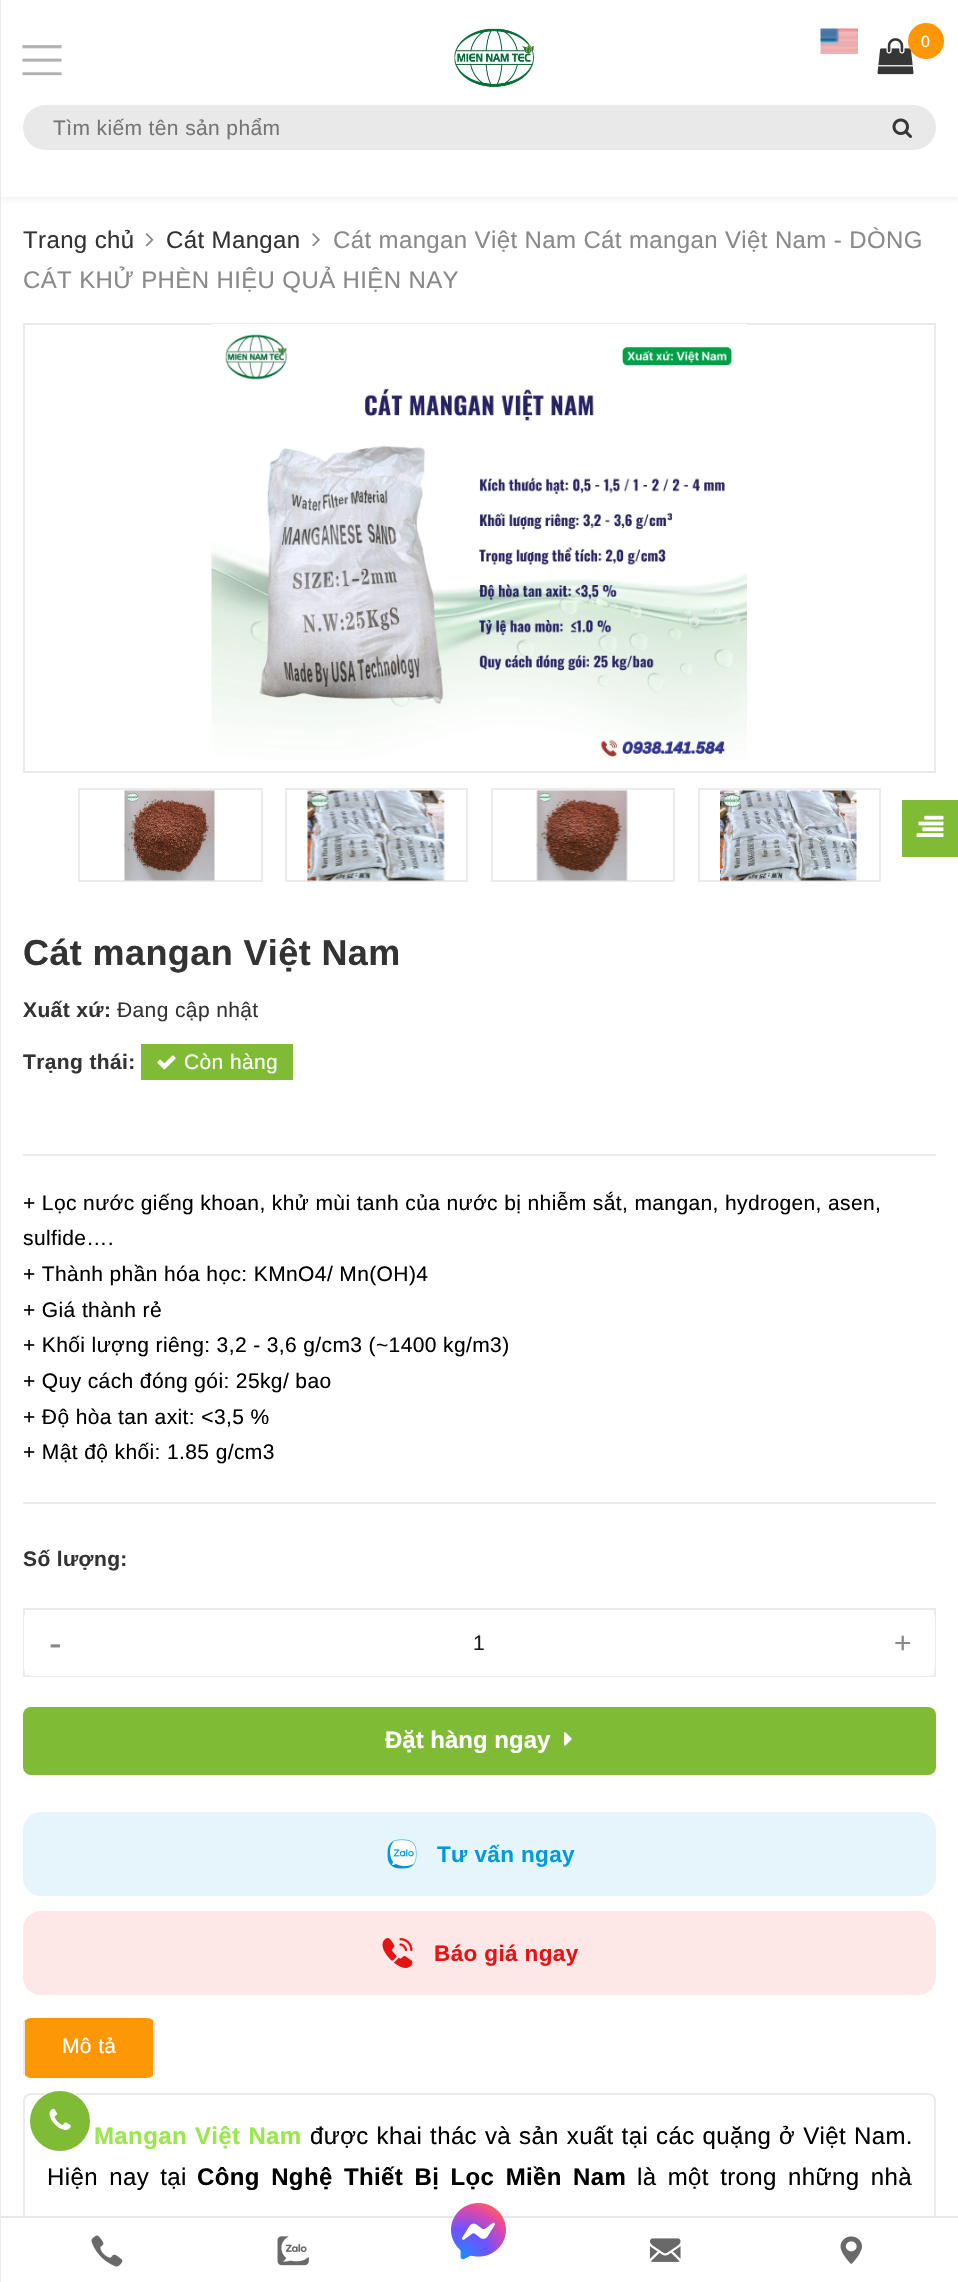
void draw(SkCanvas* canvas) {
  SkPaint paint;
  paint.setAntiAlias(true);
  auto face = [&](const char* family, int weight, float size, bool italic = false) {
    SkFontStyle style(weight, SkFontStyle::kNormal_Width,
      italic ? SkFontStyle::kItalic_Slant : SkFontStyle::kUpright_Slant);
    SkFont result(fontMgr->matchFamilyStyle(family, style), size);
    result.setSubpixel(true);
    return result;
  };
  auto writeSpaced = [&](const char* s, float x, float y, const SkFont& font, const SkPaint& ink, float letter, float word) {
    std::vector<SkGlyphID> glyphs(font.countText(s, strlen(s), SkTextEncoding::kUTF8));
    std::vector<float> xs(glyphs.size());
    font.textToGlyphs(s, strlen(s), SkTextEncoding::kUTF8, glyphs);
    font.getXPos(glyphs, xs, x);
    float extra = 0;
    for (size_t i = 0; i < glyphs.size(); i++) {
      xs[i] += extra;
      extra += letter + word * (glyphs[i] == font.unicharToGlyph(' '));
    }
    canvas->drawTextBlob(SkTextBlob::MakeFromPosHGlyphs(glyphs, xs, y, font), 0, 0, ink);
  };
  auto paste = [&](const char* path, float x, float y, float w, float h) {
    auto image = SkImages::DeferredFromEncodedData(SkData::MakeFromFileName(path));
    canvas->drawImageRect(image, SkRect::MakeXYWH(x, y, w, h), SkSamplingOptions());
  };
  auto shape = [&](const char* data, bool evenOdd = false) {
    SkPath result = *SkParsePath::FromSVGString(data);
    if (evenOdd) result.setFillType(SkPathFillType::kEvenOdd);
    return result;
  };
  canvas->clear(0xffffffff);
  canvas->save();
  canvas->clipPath(shape("M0 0H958V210H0ZM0 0H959V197H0Z", true), true);
  paint.setColor(0x26545454);
  paint.setMaskFilter(SkMaskFilter::MakeBlur(kNormal_SkBlurStyle, 4));
  canvas->drawRect(SkRect::MakeXYWH(0, 0, 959, 197), paint);
  paint.setMaskFilter(nullptr);
  canvas->restore();
  paint.setStroke(true);
  paint.setStrokeWidth(2);
  paint.setColor(0xffebebeb);
  canvas->drawRoundRect(SkRect::MakeXYWH(24, 2094, 911, 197), 7, 7, paint);
  paint.setStroke(false);
  paint.setColor(0xffe7e7e7);
  canvas->drawRect(SkRect::MakeXYWH(0, 2216, 958, 2), paint);
  paint.setColor(0xffebebeb);
  canvas->drawRect(SkRect::MakeXYWH(0, 0, 1, 2282), paint);
  paste("img/1.png", 877, 38, 37, 37);
  paint.setColor(0xfffe9705);
  canvas->drawCircle(926, 41, 18, paint);
  paste("img/2.png", 22, 45, 40, 31);
  paste("img/3.png", 454, 28, 81, 59);
  paste("img/4.png", 820, 28, 38, 26);
  paint.setColor(0xffe9e9e9);
  canvas->drawRoundRect(SkRect::MakeXYWH(23, 105, 913, 45), 22.5f, 22.5f, paint);
  paste("img/5.png", 892, 118, 20, 20);
  paste("img/6.png", 145, 233, 9, 14);
  paste("img/7.png", 312, 233, 8, 14);
  paint.setColor(0xff80bb35);
  canvas->drawRect(SkRect::MakeXYWH(902, 800, 56, 57), paint);
  paste("img/8.png", 916, 815, 28, 22);
  paint.setStroke(true);
  paint.setColor(0xffebebeb);
  canvas->drawRect(SkRect::MakeXYWH(24, 324, 911, 448), paint);
  paste("img/9.png", 211, 324, 536, 436);
  canvas->drawRect(SkRect::MakeXYWH(79, 789, 183, 92), paint);
  paste("img/10.png", 124, 790, 91, 91);
  canvas->drawRect(SkRect::MakeXYWH(286, 789, 181, 92), paint);
  paste("img/11.png", 307, 790, 138, 91);
  canvas->drawRect(SkRect::MakeXYWH(492, 789, 182, 92), paint);
  paste("img/12.png", 536, 790, 92, 91);
  canvas->drawRect(SkRect::MakeXYWH(699, 789, 181, 92), paint);
  paste("img/13.png", 720, 790, 137, 91);
  paint.setStroke(false);
  paint.setColor(0xff80bb35);
  canvas->drawRect(SkRect::MakeXYWH(141, 1044, 152, 36), paint);
  paste("img/14.png", 157, 1055, 19, 15);
  paint.setColor(0xffebebeb);
  canvas->drawRect(SkRect::MakeXYWH(23, 1154, 913, 2), paint);
  canvas->drawRect(SkRect::MakeXYWH(23, 1502, 913, 2), paint);
  paint.setStroke(true);
  canvas->drawRect(SkRect::MakeXYWH(24, 1609, 911, 67), paint);
  paint.setStroke(false);
  paint.setColor(0xffffffff);
  canvas->drawRoundRect(SkRect::MakeXYWH(24, 1610, 911, 66), 8, 8, paint);
  paint.setColor(0xff80bb35);
  canvas->drawRoundRect(SkRect::MakeXYWH(23, 1707, 913, 68), 8, 8, paint);
  paste("img/15.png", 564, 1732, 8, 14);
  paint.setColor(0xffe6f5fc);
  canvas->drawRoundRect(SkRect::MakeXYWH(23, 1812, 913, 84), 18, 18, paint);
  paste("img/16.png", 387, 1839, 30, 30);
  paint.setColor(0xfffde7e7);
  canvas->drawRoundRect(SkRect::MakeXYWH(23, 1911, 913, 84), 18, 18, paint);
  paste("img/17.png", 382, 1938, 31, 30);
  paint.setColor(0xfffe9705);
  canvas->drawRoundRect(SkRect::MakeXYWH(23, 2018, 132, 60), 8, 8, paint);
  paint.setColor(0xffebebeb);
  canvas->drawRect(SkRect::MakeXYWH(153, 2022, 2, 53), paint);
  canvas->drawRect(SkRect::MakeXYWH(23, 2022, 2, 53), paint);
  paint.setColor(0xff80bb35);
  canvas->drawCircle(60, 2121, 30, paint);
  paste("img/18.png", 49, 2108, 22, 22);
  paint.setColor(0xffffffff);
  canvas->drawRect(SkRect::MakeXYWH(23, 2218, 913, 64), paint);
  paste("img/19.png", 91, 2235, 32, 32);
  paste("img/20.png", 277, 2236, 32, 30);
  paste("img/21.png", 451, 2203, 55, 57);
  paste("img/22.png", 649, 2238, 32, 24);
  paste("img/23.png", 840, 2236, 22, 28);
  auto f0 = face("Liberation Sans", 400, 16);
  writeSpaced("0", 921, 47, f0, paint, 0.38f, 0);
  auto f1 = face("Liberation Sans", 400, 21);
  paint.setColor(0xff757575);
  writeSpaced("Tìm kiếm tên sản phẩm", 53, 135, f1, paint, 0.38f, 0);
  auto f2 = face("Liberation Sans", 400, 24);
  paint.setColor(0xff333333);
  writeSpaced("Trang chủ", 23, 248, f2, paint, 0.38f, 0);
  writeSpaced("Cát Mangan", 166, 248, f2, paint, 0.38f, 0);
  paint.setColor(0xff898989);
  writeSpaced("Cát mangan Việt Nam Cát mangan Việt Nam - DÒNG", 333, 248, f2, paint, 0.38f, 0);
  writeSpaced("CÁT KHỬ PHÈN HIỆU QUẢ HIỆN NAY", 23, 288, f2, paint, 0.38f, 0);
  auto f3 = face("Liberation Sans", 700, 36);
  paint.setColor(0xff333333);
  writeSpaced("Cát mangan Việt Nam", 23, 965, f3, paint, 0.4f, 0);
  auto f4 = face("Liberation Sans", 700, 21);
  writeSpaced("Xuất xứ:", 23, 1017, f4, paint, 0.38f, 0);
  writeSpaced("Đang cập nhật", 117, 1017, f1, paint, 0.38f, 0);
  writeSpaced("Trạng thái:", 23, 1069, f4, paint, 0.38f, 0);
  paint.setColor(0xffffffff);
  writeSpaced("Còn hàng", 184, 1069, f1, paint, 0.38f, 0);
  paint.setColor(0xff000000);
  {
    const struct { const char* s; float x, y; } items[] = {
      {"+ Lọc nước giếng khoan, khử mùi tanh của nước bị nhiễm sắt, mangan, hydrogen, asen,", 23, 1210},
      {"sulfide….", 23, 1245},
      {"+ Thành phần hóa học: KMnO4/ Mn(OH)4", 23, 1281},
      {"+ Giá thành rẻ", 23, 1317},
      {"+ Khối lượng riêng: 3,2 - 3,6 g/cm3 (~1400 kg/m3)", 23, 1352},
      {"+ Quy cách đóng gói: 25kg/ bao", 23, 1388},
      {"+ Độ hòa tan axit: <3,5 %", 23, 1424},
      {"+ Mật độ khối: 1.85 g/cm3", 23, 1459},
    };
    for (auto [s, x, y] : items) {
      writeSpaced(s, x, y, f1, paint, 0.38f, 0);
    }
  }
  paint.setColor(0xff333333);
  writeSpaced("Số lượng:", 23, 1566, f4, paint, 0.38f, 0);
  auto f5 = face("Liberation Sans", 400, 38);
  paint.setColor(0xff898989);
  writeSpaced("-", 49, 1656, f5, paint, 0.38f, 0);
  paint.setColor(0xff1c1c1c);
  writeSpaced("1", 473, 1650, f1, paint, 0.38f, 0);
  auto f6 = face("Liberation Sans", 400, 30);
  paint.setColor(0xff898989);
  writeSpaced("+", 894, 1653, f6, paint, 0.38f, 0);
  auto f7 = face("Liberation Sans", 700, 24);
  paint.setColor(0xffffffff);
  canvas->drawString("Đặt hàng ngay", 385, 1748, f7, paint);
  auto f8 = face("Liberation Sans", 700, 22.5f);
  paint.setColor(0xff009bdf);
  writeSpaced("Tư vấn ngay", 437, 1862, f8, paint, 0.38f, 0);
  paint.setColor(0xffe71313);
  writeSpaced("Báo giá ngay", 434, 1961, f8, paint, 0.38f, 0);
  paint.setColor(0xffffffff);
  writeSpaced("Mô tả", 62, 2053, f1, paint, 0.38f, 0);
  paint.setColor(0xff99e64d);
  writeSpaced("Mangan Việt Nam", 94, 2144, f7, paint, 0.38f, 0.9f);
  paint.setColor(0xff000000);
  writeSpaced("được khai thác và sản xuất tại các quặng ở Việt Nam.", 310, 2144, f2, paint, 0.38f, 0.9f);
  writeSpaced("Hiện nay tại", 47, 2185, f2, paint, 0.38f, 4.25f);
  writeSpaced("Công Nghệ Thiết Bị Lọc Miền Nam", 197, 2185, f7, paint, 0.38f, 4.25f);
  writeSpaced("là một trong những nhà", 637, 2185, f2, paint, 0.38f, 4.25f);
}
